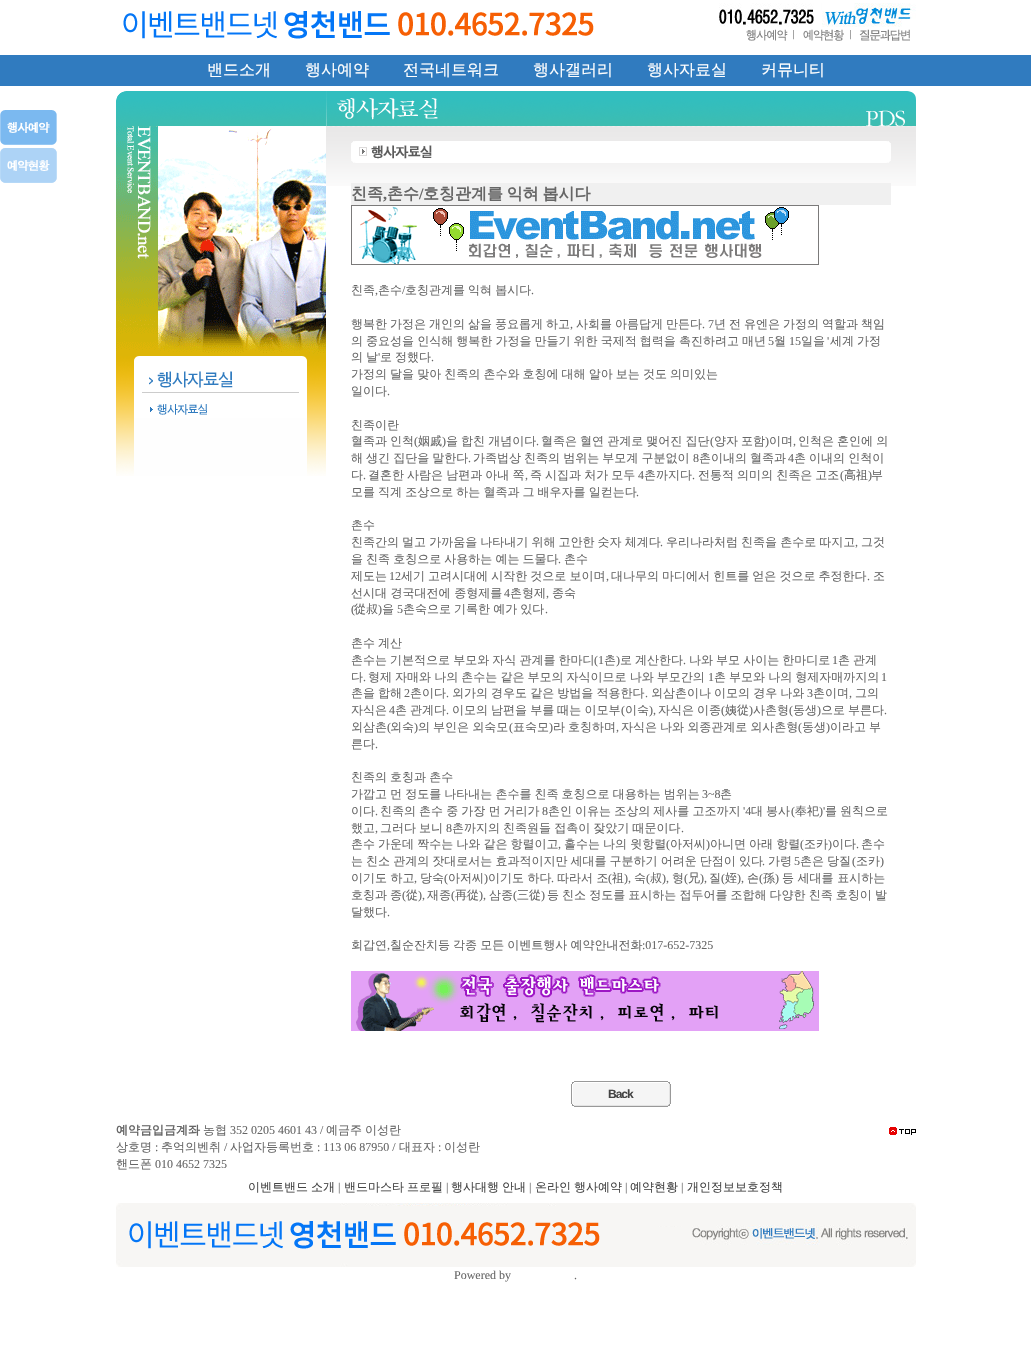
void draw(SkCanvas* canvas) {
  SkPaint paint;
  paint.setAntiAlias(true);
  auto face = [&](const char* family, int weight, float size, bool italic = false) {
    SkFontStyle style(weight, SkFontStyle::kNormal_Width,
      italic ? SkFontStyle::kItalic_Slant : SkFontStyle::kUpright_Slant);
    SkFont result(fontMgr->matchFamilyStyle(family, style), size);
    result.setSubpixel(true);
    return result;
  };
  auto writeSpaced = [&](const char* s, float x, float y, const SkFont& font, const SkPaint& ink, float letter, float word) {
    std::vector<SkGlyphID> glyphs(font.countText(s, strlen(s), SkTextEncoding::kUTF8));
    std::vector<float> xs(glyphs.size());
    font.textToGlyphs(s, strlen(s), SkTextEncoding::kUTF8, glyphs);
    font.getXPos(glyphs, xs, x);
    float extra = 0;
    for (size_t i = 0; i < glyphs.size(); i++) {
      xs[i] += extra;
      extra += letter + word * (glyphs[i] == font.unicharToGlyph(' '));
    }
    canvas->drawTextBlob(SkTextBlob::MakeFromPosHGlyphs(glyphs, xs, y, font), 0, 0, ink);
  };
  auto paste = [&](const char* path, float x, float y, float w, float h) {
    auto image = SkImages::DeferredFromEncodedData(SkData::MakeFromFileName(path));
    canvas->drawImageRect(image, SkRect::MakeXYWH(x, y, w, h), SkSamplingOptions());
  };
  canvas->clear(0xffffffff);
  paste("img/1.png", 123, 11, 471, 28);
  paste("img/2.png", 719, 3, 197, 24);
  paste("img/3.png", 746, 29, 48, 12);
  paste("img/4.png", 803, 29, 48, 12);
  paste("img/5.png", 859, 29, 51, 12);
  paint.setColor(0xff307bbf);
  canvas->drawRect(SkRect::MakeXYWH(0, 55, 1031, 31), paint);
  paste("img/6.png", 0, 110, 57, 35);
  paste("img/7.png", 0, 148, 57, 35);
  paste("img/8.png", 116, 91, 800, 35);
  paste("img/9.png", 116, 126, 210, 230);
  paste("img/10.png", 116, 356, 210, 120);
  paste("img/11.png", 134, 356, 173, 43);
  paste("img/12.png", 134, 399, 173, 19);
  paint.setColor(0xfffefefe);
  canvas->drawRect(SkRect::MakeXYWH(134, 418, 173, 58), paint);
  paste("img/13.png", 326, 126, 590, 60);
  paste("img/14.png", 351, 141, 540, 22);
  paint.setColor(0xfff0f0f0);
  canvas->drawRect(SkRect::MakeXYWH(351, 183, 540, 22), paint);
  paste("img/15.png", 351, 205, 468, 60);
  paste("img/16.png", 351, 971, 468, 60);
  paste("img/17.png", 571, 1081, 100, 26);
  paste("img/18.png", 889, 1127, 27, 8);
  paste("img/19.png", 116, 1203, 800, 64);
  auto f0 = face("WenQuanYi Zen Hei", 500, 16);
  paint.setColor(0xffffffff);
  {
    const struct { const char* s; float x, y; } items[] = {
      {"밴드소개", 207, 75},
      {"행사예약", 305, 75},
      {"전국네트워크", 403, 75},
      {"행사갤러리", 533, 75},
      {"행사자료실", 647, 75},
      {"커뮤니티", 761, 75},
    };
    for (auto [s, x, y] : items) {
      canvas->drawString(s, x, y, f0, paint);
    }
  }
  auto f1 = face("WenQuanYi Zen Hei", 700, 16);
  paint.setColor(0xff666666);
  canvas->drawString("친족", 351, 199, f1, paint);
  auto f2 = face("Liberation Serif", 700, 16);
  canvas->drawString(",", 383, 199, f2, paint);
  canvas->drawString("촌수", 387, 199, f1, paint);
  canvas->drawString("/", 419, 199, f2, paint);
  writeSpaced("호칭관계를 익혀 봅시다", 423, 199, f1, paint, 0, -1);
  auto f3 = face("WenQuanYi Zen Hei", 500, 12);
  canvas->drawString("친족", 351, 294, f3, paint);
  auto f4 = face("Liberation Serif", 400, 12);
  canvas->drawString(",", 375, 294, f4, paint);
  canvas->drawString("촌수", 378, 294, f3, paint);
  canvas->drawString("/", 402, 294, f4, paint);
  writeSpaced("호칭관계를 익혀 봅시다", 405, 294, f3, paint, 0, -0.5f);
  canvas->drawString(".", 531, 294, f4, paint);
  {
    const struct { const char* s; float x, y; } items[] = {
      {"행복한", 351, 328},
      {"가정은", 390, 328},
      {"개인의", 429, 328},
      {"삶을", 468, 328},
      {"풍요롭게", 495, 328},
      {"하고", 546, 328},
    };
    for (auto [s, x, y] : items) {
      canvas->drawString(s, x, y, f3, paint);
    }
  }
  canvas->drawString(",", 570, 328, f4, paint);
  {
    const struct { const char* s; float x, y; } items[] = {
      {"사회를", 576, 328},
      {"아름답게", 615, 328},
      {"만든다", 666, 328},
    };
    for (auto [s, x, y] : items) {
      canvas->drawString(s, x, y, f3, paint);
    }
  }
  canvas->drawString(". 7", 702, 328, f4, paint);
  {
    const struct { const char* s; float x, y; } items[] = {
      {"년", 714, 328},
      {"전", 729, 328},
      {"유엔은", 744, 328},
      {"가정의", 783, 328},
      {"역할과", 822, 328},
      {"책임", 861, 328},
    };
    for (auto [s, x, y] : items) {
      canvas->drawString(s, x, y, f3, paint);
    }
  }
  writeSpaced("의 중요성을 인식해 행복한 가정을 만들기 위한 국제적 협력을 촉진하려고 매년", 351, 345, f3, paint, 0, -0.5f);
  canvas->drawString("5", 768, 345, f4, paint);
  canvas->drawString("월", 774, 345, f3, paint);
  canvas->drawString("15", 789, 345, f4, paint);
  canvas->drawString("일을", 801, 345, f3, paint);
  canvas->drawString("'", 827, 345, f4, paint);
  writeSpaced("세계 가정", 830, 345, f3, paint, 0, -0.5f);
  writeSpaced("의 날", 351, 361, f3, paint, 0, -0.5f);
  canvas->drawString("'", 378, 361, f4, paint);
  writeSpaced("로 정했다", 380, 361, f3, paint, 0, -0.5f);
  canvas->drawString(".", 431, 361, f4, paint);
  writeSpaced("가정의 달을 맞아 친족의 촌수와 호칭에 대해 알아 보는 것도 의미있는", 351, 378, f3, paint, 0, -0.5f);
  canvas->drawString("일이다", 351, 395, f3, paint);
  canvas->drawString(".", 387, 395, f4, paint);
  canvas->drawString("친족이란", 351, 429, f3, paint);
  writeSpaced("혈족과 인척", 351, 445, f3, paint, 0, -0.5f);
  canvas->drawString("(", 414, 445, f4, paint);
  canvas->drawString("姻戚", 418, 445, f3, paint);
  canvas->drawString(")", 442, 445, f4, paint);
  writeSpaced("을 합친 개념이다", 446, 445, f3, paint, 0, -0.5f);
  canvas->drawString(".", 536, 445, f4, paint);
  writeSpaced("혈족은 혈연 관계로 맺어진 집단", 541, 445, f3, paint, 0, -0.5f);
  canvas->drawString("(", 710, 445, f4, paint);
  writeSpaced("양자 포함", 714, 445, f3, paint, 0, -0.5f);
  canvas->drawString(")", 765, 445, f4, paint);
  canvas->drawString("이며", 769, 445, f3, paint);
  canvas->drawString(",", 793, 445, f4, paint);
  writeSpaced("인척은 혼인에 의", 798, 445, f3, paint, 0, -0.5f);
  writeSpaced("해 생긴 집단을 말한다", 351, 462, f3, paint, 0, -0.5f);
  canvas->drawString(".", 468, 462, f4, paint);
  writeSpaced("가족법상 친족의 범위는 부모계 구분없이", 473, 462, f3, paint, 0, -0.5f);
  canvas->drawString("8", 693, 462, f4, paint);
  writeSpaced("촌이내의 혈족과", 699, 462, f3, paint, 0, -0.5f);
  canvas->drawString("4", 788, 462, f4, paint);
  writeSpaced("촌 이내의 인척이", 794, 462, f3, paint, 0, -0.5f);
  canvas->drawString("다", 351, 479, f3, paint);
  canvas->drawString(".", 363, 479, f4, paint);
  writeSpaced("결혼한 사람은 남편과 아내 쪽", 368, 479, f3, paint, 0, -0.5f);
  canvas->drawString(",", 525, 479, f4, paint);
  writeSpaced("즉 시집과 처가 모두", 530, 479, f3, paint, 0, -0.5f);
  canvas->drawString("4", 638, 479, f4, paint);
  canvas->drawString("촌까지다", 644, 479, f3, paint);
  canvas->drawString(".", 692, 479, f4, paint);
  writeSpaced("전통적 의미의 친족은 고조", 698, 479, f3, paint, 0, -0.5f);
  canvas->drawString("(", 840, 479, f4, paint);
  canvas->drawString("高祖", 844, 479, f3, paint);
  canvas->drawString(")", 868, 479, f4, paint);
  canvas->drawString("부", 871, 479, f3, paint);
  writeSpaced("모를 직계 조상으로 하는 혈족과 그 배우자를 일컫는다", 351, 496, f3, paint, 0, -0.5f);
  canvas->drawString(".", 636, 496, f4, paint);
  canvas->drawString("촌수", 351, 529, f3, paint);
  writeSpaced("친족간의 멀고 가까움을 나타내기 위해 고안한 숫자 체계다", 351, 546, f3, paint, 0, -0.5f);
  canvas->drawString(".", 660, 546, f4, paint);
  writeSpaced("우리나라처럼 친족을 촌수로 따지고", 666, 546, f3, paint, 0, -0.5f);
  canvas->drawString(",", 855, 546, f4, paint);
  canvas->drawString("그것", 861, 546, f3, paint);
  writeSpaced("을 친족 호칭으로 사용하는 예는 드물다", 351, 563, f3, paint, 0, -0.5f);
  canvas->drawString(".", 558, 563, f4, paint);
  canvas->drawString("촌수", 564, 563, f3, paint);
  canvas->drawString("제도는", 351, 580, f3, paint);
  canvas->drawString("12", 389, 580, f4, paint);
  writeSpaced("세기 고려시대에 시작한 것으로 보이며", 401, 580, f3, paint, 0, -0.5f);
  canvas->drawString(",", 606, 580, f4, paint);
  writeSpaced("대나무의 마디에서 힌트를 얻은 것으로 추정한다", 611, 580, f3, paint, 0, -0.5f);
  canvas->drawString(".", 867, 580, f4, paint);
  canvas->drawString("조", 873, 580, f3, paint);
  canvas->drawString("선시대 경국대전에 종형제를", 351, 597, f3, paint);
  canvas->drawString("4", 504, 597, f4, paint);
  canvas->drawString("촌형제", 510, 597, f3, paint);
  canvas->drawString(",", 546, 597, f4, paint);
  canvas->drawString("종숙", 552, 597, f3, paint);
  canvas->drawString("(", 351, 613, f4, paint);
  canvas->drawString("從叔", 354, 613, f3, paint);
  canvas->drawString(")", 378, 613, f4, paint);
  canvas->drawString("을", 382, 613, f3, paint);
  canvas->drawString("5", 397, 613, f4, paint);
  writeSpaced("촌숙으로 기록한 예가 있다", 403, 613, f3, paint, 0, -0.5f);
  canvas->drawString(".", 545, 613, f4, paint);
  writeSpaced("촌수 계산", 351, 647, f3, paint, 0, -0.5f);
  writeSpaced("촌수는 기본적으로 부모와 자식 관계를 한마디", 351, 664, f3, paint, 0, -0.5f);
  canvas->drawString("(1", 594, 664, f4, paint);
  canvas->drawString("촌", 604, 664, f3, paint);
  canvas->drawString(")", 616, 664, f4, paint);
  writeSpaced("로 계산한다", 620, 664, f3, paint, 0, -0.5f);
  canvas->drawString(".", 683, 664, f4, paint);
  writeSpaced("나와 부모 사이는 한마디로", 689, 664, f3, paint, 0, -0.5f);
  canvas->drawString("1", 832, 664, f4, paint);
  writeSpaced("촌 관계", 838, 664, f3, paint, 0, -0.5f);
  canvas->drawString("다", 351, 681, f3, paint);
  canvas->drawString(".", 363, 681, f4, paint);
  writeSpaced("형제 자매와 나의 촌수는 같은 부모의 자식이므로 나와 부모간의", 368, 681, f3, paint, 0, -0.5f);
  canvas->drawString("1", 708, 681, f4, paint);
  writeSpaced("촌 부모와 나의 형제자매까지의", 714, 681, f3, paint, 0, -0.5f);
  canvas->drawString("1", 881, 681, f4, paint);
  writeSpaced("촌을 합해", 351, 697, f3, paint, 0, -0.5f);
  canvas->drawString("2", 404, 697, f4, paint);
  canvas->drawString("촌이다", 410, 697, f3, paint);
  canvas->drawString(".", 446, 697, f4, paint);
  writeSpaced("외가의 경우도 같은 방법을 적용한다", 452, 697, f3, paint, 0, -0.5f);
  canvas->drawString(".", 645, 697, f4, paint);
  writeSpaced("외삼촌이나 이모의 경우 나와", 651, 697, f3, paint, 0, -0.5f);
  canvas->drawString("3", 807, 697, f4, paint);
  canvas->drawString("촌이며", 813, 697, f3, paint);
  canvas->drawString(",", 849, 697, f4, paint);
  canvas->drawString("그의", 855, 697, f3, paint);
  canvas->drawString("자식은", 351, 714, f3, paint);
  canvas->drawString("4", 389, 714, f4, paint);
  writeSpaced("촌 관계다", 395, 714, f3, paint, 0, -0.5f);
  canvas->drawString(".", 446, 714, f4, paint);
  writeSpaced("이모의 남편을 부를 때는 이모부", 452, 714, f3, paint, 0, -0.5f);
  canvas->drawString("(", 621, 714, f4, paint);
  canvas->drawString("이숙", 625, 714, f3, paint);
  canvas->drawString("),", 649, 714, f4, paint);
  writeSpaced("자식은 이종", 658, 714, f3, paint, 0, -0.5f);
  canvas->drawString("(", 721, 714, f4, paint);
  canvas->drawString("姨從", 725, 714, f3, paint);
  canvas->drawString(")", 749, 714, f4, paint);
  canvas->drawString("사촌형", 753, 714, f3, paint);
  canvas->drawString("(", 789, 714, f4, paint);
  canvas->drawString("동생", 793, 714, f3, paint);
  canvas->drawString(")", 817, 714, f4, paint);
  writeSpaced("으로 부른다", 821, 714, f3, paint, 0, -0.5f);
  canvas->drawString(".", 884, 714, f4, paint);
  canvas->drawString("외삼촌", 351, 731, f3, paint);
  canvas->drawString("(", 387, 731, f4, paint);
  canvas->drawString("외숙", 390, 731, f3, paint);
  canvas->drawString(")", 414, 731, f4, paint);
  writeSpaced("의 부인은 외숙모", 418, 731, f3, paint, 0, -0.5f);
  canvas->drawString("(", 509, 731, f4, paint);
  canvas->drawString("표숙모", 513, 731, f3, paint);
  canvas->drawString(")", 549, 731, f4, paint);
  writeSpaced("라 호칭하며", 553, 731, f3, paint, 0, -0.5f);
  canvas->drawString(",", 616, 731, f4, paint);
  writeSpaced("자식은 나와 외종관계로 외사촌형", 621, 731, f3, paint, 0, -0.5f);
  canvas->drawString("(", 798, 731, f4, paint);
  canvas->drawString("동생", 802, 731, f3, paint);
  canvas->drawString(")", 826, 731, f4, paint);
  writeSpaced("이라고 부", 830, 731, f3, paint, 0, -0.5f);
  canvas->drawString("른다", 351, 748, f3, paint);
  canvas->drawString(".", 375, 748, f4, paint);
  writeSpaced("친족의 호칭과 촌수", 351, 781, f3, paint, 0, -0.5f);
  writeSpaced("가깝고 먼 정도를 나타내는 촌수를 친족 호칭으로 대용하는 범위는", 351, 798, f3, paint, 0, -0.5f);
  canvas->drawString("3~8", 702, 798, f4, paint);
  canvas->drawString("촌", 720, 798, f3, paint);
  canvas->drawString("이다", 351, 815, f3, paint);
  canvas->drawString(".", 375, 815, f4, paint);
  writeSpaced("친족의 촌수 중 가장 먼 거리가", 380, 815, f3, paint, 0, -0.5f);
  canvas->drawString("8", 542, 815, f4, paint);
  writeSpaced("촌인 이유는 조상의 제사를 고조까지", 548, 815, f3, paint, 0, -0.5f);
  canvas->drawString("'4", 743, 815, f4, paint);
  writeSpaced("대 봉사", 751, 815, f3, paint, 0, -0.5f);
  canvas->drawString("(", 791, 815, f4, paint);
  canvas->drawString("奉祀", 795, 815, f3, paint);
  canvas->drawString(")'", 819, 815, f4, paint);
  writeSpaced("를 원칙으로", 825, 815, f3, paint, 0, -0.5f);
  canvas->drawString("했고", 351, 832, f3, paint);
  canvas->drawString(",", 375, 832, f4, paint);
  writeSpaced("그러다 보니", 380, 832, f3, paint, 0, -0.5f);
  canvas->drawString("8", 446, 832, f4, paint);
  writeSpaced("촌까지의 친족원들 접촉이 잦았기 때문이다", 452, 832, f3, paint, 0, -0.5f);
  canvas->drawString(".", 681, 832, f4, paint);
  writeSpaced("촌수 가운데 짝수는 나와 같은 항렬이고", 351, 848, f3, paint, 0, -0.5f);
  canvas->drawString(",", 558, 848, f4, paint);
  writeSpaced("홀수는 나의 윗항렬", 564, 848, f3, paint, 0, -0.5f);
  canvas->drawString("(", 666, 848, f4, paint);
  canvas->drawString("아저씨", 670, 848, f3, paint);
  canvas->drawString(")", 706, 848, f4, paint);
  writeSpaced("아니면 아래 항렬", 710, 848, f3, paint, 0, -0.5f);
  canvas->drawString("(", 800, 848, f4, paint);
  canvas->drawString("조카", 804, 848, f3, paint);
  canvas->drawString(")", 828, 848, f4, paint);
  canvas->drawString("이다", 832, 848, f3, paint);
  canvas->drawString(".", 856, 848, f4, paint);
  canvas->drawString("촌수", 861, 848, f3, paint);
  writeSpaced("는 친소 관계의 잣대로서는 효과적이지만 세대를 구분하기 어려운 단점이 있다", 351, 865, f3, paint, 0, -0.5f);
  canvas->drawString(".", 762, 865, f4, paint);
  canvas->drawString("가령", 768, 865, f3, paint);
  canvas->drawString("5", 794, 865, f4, paint);
  writeSpaced("촌은 당질", 800, 865, f3, paint, 0, -0.5f);
  canvas->drawString("(", 852, 865, f4, paint);
  canvas->drawString("조카", 856, 865, f3, paint);
  canvas->drawString(")", 880, 865, f4, paint);
  canvas->drawString("이기도 하고", 351, 882, f3, paint);
  canvas->drawString(",", 414, 882, f4, paint);
  canvas->drawString("당숙", 420, 882, f3, paint);
  canvas->drawString("(", 444, 882, f4, paint);
  canvas->drawString("아저씨", 448, 882, f3, paint);
  canvas->drawString(")", 484, 882, f4, paint);
  canvas->drawString("이기도 하다", 488, 882, f3, paint);
  canvas->drawString(".", 551, 882, f4, paint);
  canvas->drawString("따라서 조", 557, 882, f3, paint);
  canvas->drawString("(", 608, 882, f4, paint);
  canvas->drawString("祖", 612, 882, f3, paint);
  canvas->drawString("),", 624, 882, f4, paint);
  canvas->drawString("숙", 634, 882, f3, paint);
  canvas->drawString("(", 646, 882, f4, paint);
  canvas->drawString("叔", 650, 882, f3, paint);
  canvas->drawString("),", 662, 882, f4, paint);
  canvas->drawString("형", 672, 882, f3, paint);
  canvas->drawString("(", 684, 882, f4, paint);
  canvas->drawString("兄", 688, 882, f3, paint);
  canvas->drawString("),", 700, 882, f4, paint);
  canvas->drawString("질", 709, 882, f3, paint);
  canvas->drawString("(", 721, 882, f4, paint);
  canvas->drawString("姪", 725, 882, f3, paint);
  canvas->drawString("),", 737, 882, f4, paint);
  canvas->drawString("손", 747, 882, f3, paint);
  canvas->drawString("(", 759, 882, f4, paint);
  canvas->drawString("孫", 763, 882, f3, paint);
  canvas->drawString(")", 775, 882, f4, paint);
  canvas->drawString("등 세대를 표시하는", 782, 882, f3, paint);
  writeSpaced("호칭과 종", 351, 899, f3, paint, 0, -0.5f);
  canvas->drawString("(", 402, 899, f4, paint);
  canvas->drawString("從", 406, 899, f3, paint);
  canvas->drawString("),", 418, 899, f4, paint);
  canvas->drawString("재종", 427, 899, f3, paint);
  canvas->drawString("(", 451, 899, f4, paint);
  canvas->drawString("再從", 455, 899, f3, paint);
  canvas->drawString("),", 479, 899, f4, paint);
  canvas->drawString("삼종", 489, 899, f3, paint);
  canvas->drawString("(", 513, 899, f4, paint);
  canvas->drawString("三從", 517, 899, f3, paint);
  canvas->drawString(")", 541, 899, f4, paint);
  writeSpaced("등 친소 정도를 표시하는 접두어를 조합해 다양한 친족 호칭이 발", 547, 899, f3, paint, 0, -0.5f);
  canvas->drawString("달했다", 351, 916, f3, paint);
  canvas->drawString(".", 387, 916, f4, paint);
  canvas->drawString("회갑연", 351, 949, f3, paint);
  canvas->drawString(",", 387, 949, f4, paint);
  writeSpaced("칠순잔치등 각종 모든 이벤트행사 예약안내전화", 390, 949, f3, paint, 0, -0.5f);
  canvas->drawString(":017-652-7325", 642, 949, f4, paint);
  auto f5 = face("Liberation Sans", 700, 12);
  paint.setColor(0xff444444);
  writeSpaced("Back", 608, 1098, f5, paint, -1, 0);
  auto f6 = face("WenQuanYi Zen Hei", 700, 12);
  paint.setColor(0xff666666);
  canvas->drawString("예약금입금계좌", 116, 1134, f6, paint);
  canvas->drawString("농협", 203, 1134, f3, paint);
  canvas->drawString("352 0205 4601 43 /", 230, 1134, f4, paint);
  {
    const struct { const char* s; float x, y; } items[] = {
      {"예금주", 326, 1134},
      {"이성란", 365, 1134},
      {"상호명", 116, 1151},
    };
    for (auto [s, x, y] : items) {
      canvas->drawString(s, x, y, f3, paint);
    }
  }
  canvas->drawString(":", 155, 1151, f4, paint);
  canvas->drawString("추억의벤취", 161, 1151, f3, paint);
  canvas->drawString("/", 224, 1151, f4, paint);
  canvas->drawString("사업자등록번호", 230, 1151, f3, paint);
  canvas->drawString(": 113 06 87950 /", 317, 1151, f4, paint);
  canvas->drawString("대표자", 399, 1151, f3, paint);
  canvas->drawString(":", 438, 1151, f4, paint);
  canvas->drawString("이성란", 444, 1151, f3, paint);
  canvas->drawString("핸드폰", 116, 1168, f3, paint);
  canvas->drawString("010 4652 7325", 155, 1168, f4, paint);
  paint.setColor(0xff444444);
  writeSpaced("이벤트밴드 소개", 248, 1191, f3, paint, 0, -0.5f);
  paint.setColor(0xff666666);
  canvas->drawString("|", 338, 1191, f4, paint);
  paint.setColor(0xff444444);
  writeSpaced("밴드마스타 프로필", 344, 1191, f3, paint, 0, -0.5f);
  paint.setColor(0xff666666);
  canvas->drawString("|", 446, 1191, f4, paint);
  paint.setColor(0xff444444);
  writeSpaced("행사대행 안내", 451, 1191, f3, paint, 0, -0.5f);
  paint.setColor(0xff666666);
  canvas->drawString("|", 529, 1191, f4, paint);
  paint.setColor(0xff444444);
  writeSpaced("온라인 행사예약", 535, 1191, f3, paint, 0, -0.5f);
  paint.setColor(0xff666666);
  canvas->drawString("|", 625, 1191, f4, paint);
  paint.setColor(0xff444444);
  canvas->drawString("예약현황", 630, 1191, f3, paint);
  paint.setColor(0xff666666);
  canvas->drawString("|", 681, 1191, f4, paint);
  paint.setColor(0xff444444);
  canvas->drawString("개인정보보호정책", 687, 1191, f3, paint);
  paint.setColor(0xff666666);
  canvas->drawString("Powered by", 454, 1279, f4, paint);
  canvas->drawString(".", 574, 1279, f4, paint);
}
